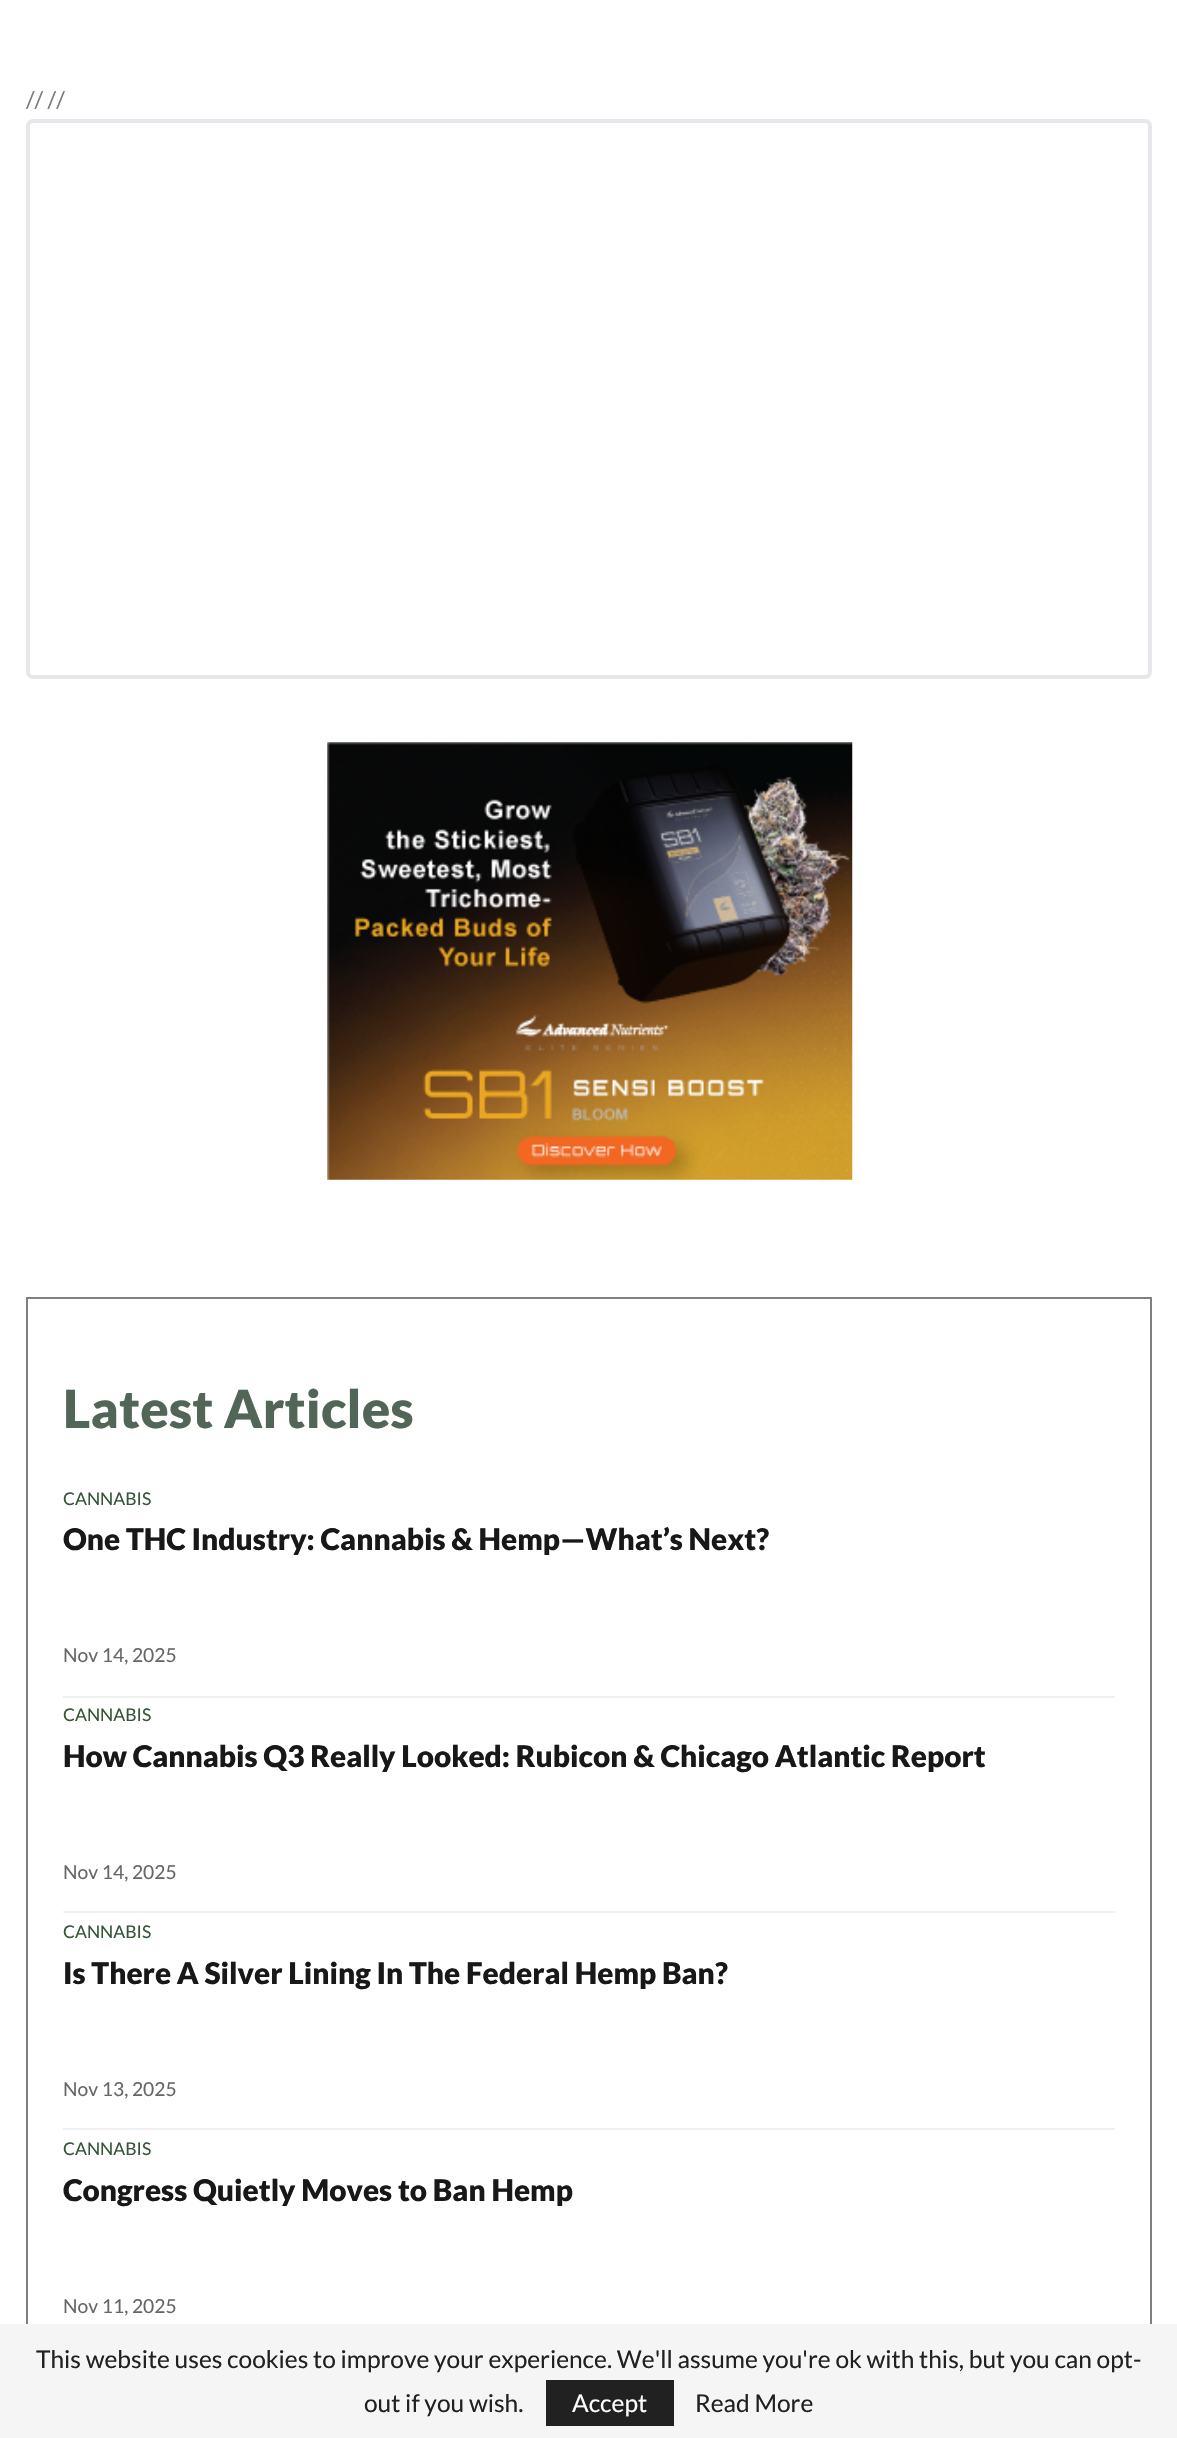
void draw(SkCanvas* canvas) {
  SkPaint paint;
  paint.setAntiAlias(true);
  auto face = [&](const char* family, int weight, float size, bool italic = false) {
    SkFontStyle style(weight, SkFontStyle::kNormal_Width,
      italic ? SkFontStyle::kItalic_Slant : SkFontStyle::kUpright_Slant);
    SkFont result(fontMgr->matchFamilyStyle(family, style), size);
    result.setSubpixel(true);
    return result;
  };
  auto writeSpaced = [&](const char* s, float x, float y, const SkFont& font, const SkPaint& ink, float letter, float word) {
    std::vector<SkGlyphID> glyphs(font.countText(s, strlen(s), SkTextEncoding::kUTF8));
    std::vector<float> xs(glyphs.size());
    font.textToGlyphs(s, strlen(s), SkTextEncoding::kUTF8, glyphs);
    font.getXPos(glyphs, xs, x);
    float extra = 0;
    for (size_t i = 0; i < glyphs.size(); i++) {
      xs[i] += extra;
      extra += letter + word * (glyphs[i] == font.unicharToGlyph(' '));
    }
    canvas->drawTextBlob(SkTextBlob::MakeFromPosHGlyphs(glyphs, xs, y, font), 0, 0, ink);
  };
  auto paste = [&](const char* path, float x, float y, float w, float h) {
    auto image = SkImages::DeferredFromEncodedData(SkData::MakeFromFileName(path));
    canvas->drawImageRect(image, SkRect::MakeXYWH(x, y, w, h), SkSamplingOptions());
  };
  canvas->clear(0xffffffff);
  paint.setStroke(true);
  paint.setStrokeWidth(4);
  paint.setColor(0xffe5e7eb);
  canvas->drawRoundRect(SkRect::MakeXYWH(28, 121, 1122, 556), 5, 5, paint);
  paste("img/1.png", 327, 742, 526, 438);
  paint.setStrokeWidth(2);
  paint.setColor(0xff7f7f7f);
  canvas->drawRect(SkRect::MakeXYWH(27, 1298, 1124, 1118), paint);
  paint.setStroke(false);
  {
    const struct { float x, y, w, h; SkColor color; } items[] = {
      {63, 1696, 1052, 2, 0xfff0f0f0},
      {63, 1911, 1052, 2, 0xfff0f0f0},
      {63, 2128, 1052, 2, 0xfff0f0f0},
      {0, 2324, 1177, 114, 0xfff5f5f5},
      {546, 2380, 128, 46, 0xff212121},
    };
    for (auto [x, y, w, h, color] : items) {
      paint.setColor(color);
      canvas->drawRect(SkRect::MakeXYWH(x, y, w, h), paint);
    }
  }
  auto f0 = face("Lato", 400, 23);
  paint.setColor(0xff7b7b7b);
  canvas->drawString("// //", 26, 108, f0, paint);
  auto f1 = face("Lato", 900, 52.5f);
  paint.setColor(0xff526657);
  writeSpaced("Latest Articles", 63, 1428, f1, paint, 0.2f, 0);
  auto f2 = face("Lato", 400, 17.5f);
  paint.setColor(0xff355637);
  canvas->drawString("CANNABIS", 63, 1505, f2, paint);
  auto f3 = face("Lato", 900, 29.75f);
  paint.setColor(0xff181818);
  canvas->drawString("One THC Industry: Cannabis & Hemp—What’s Next?", 63, 1550, f3, paint);
  auto f4 = face("Lato", 400, 19.25f);
  paint.setColor(0xff666666);
  canvas->drawString("Nov 14, 2025", 63, 1662, f4, paint);
  paint.setColor(0xff355637);
  canvas->drawString("CANNABIS", 63, 1721, f2, paint);
  paint.setColor(0xff181818);
  canvas->drawString("How Cannabis Q3 Really Looked: Rubicon & Chicago Atlantic Report", 63, 1767, f3, paint);
  paint.setColor(0xff666666);
  canvas->drawString("Nov 14, 2025", 63, 1879, f4, paint);
  paint.setColor(0xff355637);
  canvas->drawString("CANNABIS", 63, 1938, f2, paint);
  paint.setColor(0xff181818);
  canvas->drawString("Is There A Silver Lining In The Federal Hemp Ban?", 63, 1984, f3, paint);
  paint.setColor(0xff666666);
  canvas->drawString("Nov 13, 2025", 63, 2096, f4, paint);
  paint.setColor(0xff355637);
  canvas->drawString("CANNABIS", 63, 2155, f2, paint);
  paint.setColor(0xff181818);
  canvas->drawString("Congress Quietly Moves to Ban Hemp", 63, 2201, f3, paint);
  paint.setColor(0xff666666);
  canvas->drawString("Nov 11, 2025", 63, 2313, f4, paint);
  auto f5 = face("Lato", 400, 24.5f);
  paint.setColor(0xff212121);
  canvas->drawString("This website uses cookies to improve your experience. We'll assume you're ok with this, but you can opt-", 36, 2368, f5, paint);
  canvas->drawString("out if you wish.", 364, 2412, f5, paint);
  paint.setColor(0xffffffff);
  canvas->drawString("Accept", 572, 2412, f5, paint);
  paint.setColor(0xff212121);
  canvas->drawString("Read More", 695, 2412, f5, paint);
}
